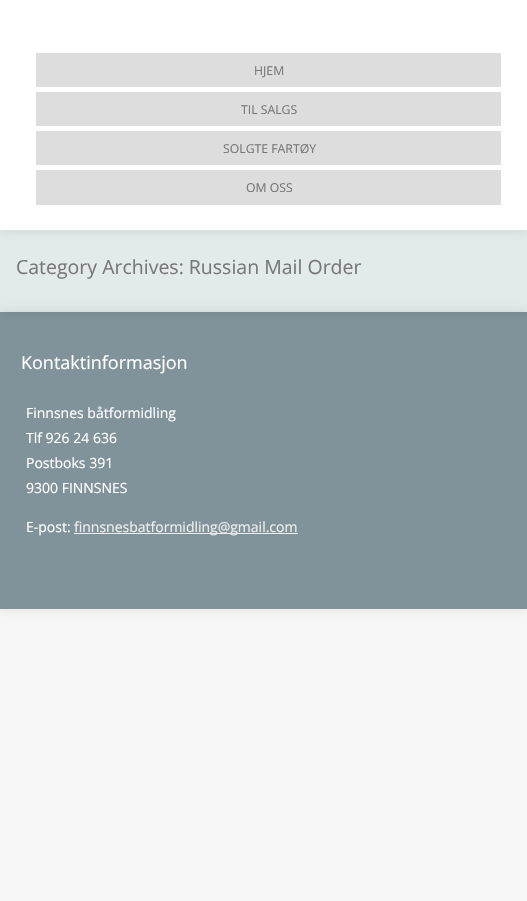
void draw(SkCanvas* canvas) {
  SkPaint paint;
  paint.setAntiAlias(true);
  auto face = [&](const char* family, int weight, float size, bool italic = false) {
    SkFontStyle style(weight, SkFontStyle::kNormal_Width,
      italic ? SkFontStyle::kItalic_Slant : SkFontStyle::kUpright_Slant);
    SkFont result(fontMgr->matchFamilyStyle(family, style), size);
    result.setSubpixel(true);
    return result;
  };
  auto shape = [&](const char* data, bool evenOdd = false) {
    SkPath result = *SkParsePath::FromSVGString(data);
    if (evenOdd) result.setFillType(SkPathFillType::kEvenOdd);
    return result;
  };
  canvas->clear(0xfff7f7f7);
  paint.setColor(0xffa0b8c1);
  canvas->drawRect(SkRect::MakeXYWH(0, 312, 527, 297), paint);
  paint.setColor(0x1a000000);
  paint.setMaskFilter(SkMaskFilter::MakeBlur(kNormal_SkBlurStyle, 5));
  canvas->drawRect(SkRect::MakeXYWH(0, 230, 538, 82), paint);
  paint.setMaskFilter(nullptr);
  paint.setColor(0xffe3eaec);
  canvas->drawRect(SkRect::MakeXYWH(0, 230, 527, 82), paint);
  paint.setColor(0x1a000000);
  paint.setMaskFilter(SkMaskFilter::MakeBlur(kNormal_SkBlurStyle, 5));
  canvas->drawRect(SkRect::MakeXYWH(0, 0, 527, 230), paint);
  paint.setMaskFilter(nullptr);
  {
    const struct { float x, y, w, h; SkColor color; } items[] = {
      {0, 0, 527, 230, 0xffffffff},
      {36, 53, 465, 34, 0xffdddddd},
      {36, 92, 465, 34, 0xffdddddd},
      {36, 131, 465, 34, 0xffdddddd},
      {36, 170, 465, 35, 0xffdddddd},
    };
    for (auto [x, y, w, h, color] : items) {
      paint.setColor(color);
      canvas->drawRect(SkRect::MakeXYWH(x, y, w, h), paint);
    }
  }
  canvas->save();
  canvas->clipPath(shape("M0 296H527V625H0ZM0 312H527V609H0Z", true), true);
  paint.setColor(0x1a000000);
  paint.setMaskFilter(SkMaskFilter::MakeBlur(kNormal_SkBlurStyle, 5));
  canvas->drawRect(SkRect::MakeXYWH(0, 312, 527, 297), paint);
  paint.setMaskFilter(nullptr);
  canvas->restore();
  paint.setColor(0x33000000);
  canvas->drawRect(SkRect::MakeXYWH(0, 312, 527, 297), paint);
  paint.setColor(0xffeeeeee);
  canvas->drawRect(SkRect::MakeXYWH(74, 533, 224, 1), paint);
  auto f0 = face("Open Sans", 400, 12.25f);
  paint.setColor(0xff777777);
  {
    const struct { const char* s; float x, y; } items[] = {
      {"HJEM", 254, 75},
      {"TIL SALGS", 241, 114},
      {"SOLGTE FARTØY", 223, 153},
      {"OM OSS", 246, 192},
    };
    for (auto [s, x, y] : items) {
      canvas->drawString(s, x, y, f0, paint);
    }
  }
  auto f1 = face("Open Sans", 400, 19.5f);
  canvas->drawString("Category Archives: Russian Mail Order", 16, 274, f1, paint);
  auto f2 = face("Open Sans", 400, 18);
  paint.setColor(0xffffffff);
  canvas->drawString("Kontaktinformasjon", 21, 369, f2, paint);
  auto f3 = face("Open Sans", 400, 14);
  {
    const struct { const char* s; float x, y; } items[] = {
      {"Finnsnes båtformidling", 26, 418},
      {"Tlf 926 24 636", 26, 443},
      {"Postboks 391", 26, 468},
      {"9300 FINNSNES", 26, 493},
      {"E-post:", 26, 532},
    };
    for (auto [s, x, y] : items) {
      canvas->drawString(s, x, y, f3, paint);
    }
  }
  paint.setColor(0xffeeeeee);
  canvas->drawString("finnsnesbatformidling@gmail.com", 74, 532, f3, paint);
}
